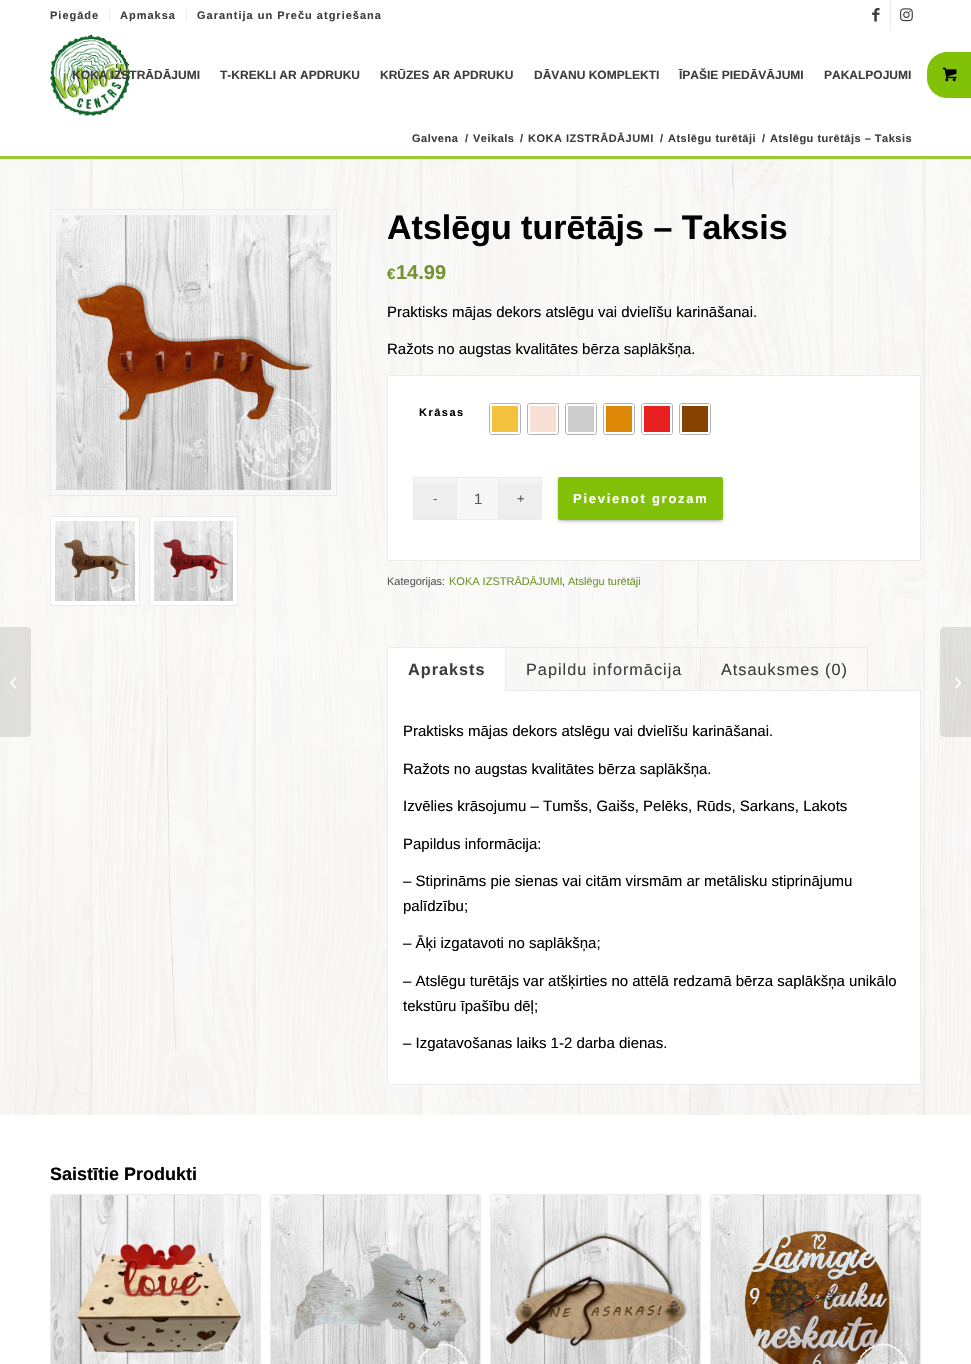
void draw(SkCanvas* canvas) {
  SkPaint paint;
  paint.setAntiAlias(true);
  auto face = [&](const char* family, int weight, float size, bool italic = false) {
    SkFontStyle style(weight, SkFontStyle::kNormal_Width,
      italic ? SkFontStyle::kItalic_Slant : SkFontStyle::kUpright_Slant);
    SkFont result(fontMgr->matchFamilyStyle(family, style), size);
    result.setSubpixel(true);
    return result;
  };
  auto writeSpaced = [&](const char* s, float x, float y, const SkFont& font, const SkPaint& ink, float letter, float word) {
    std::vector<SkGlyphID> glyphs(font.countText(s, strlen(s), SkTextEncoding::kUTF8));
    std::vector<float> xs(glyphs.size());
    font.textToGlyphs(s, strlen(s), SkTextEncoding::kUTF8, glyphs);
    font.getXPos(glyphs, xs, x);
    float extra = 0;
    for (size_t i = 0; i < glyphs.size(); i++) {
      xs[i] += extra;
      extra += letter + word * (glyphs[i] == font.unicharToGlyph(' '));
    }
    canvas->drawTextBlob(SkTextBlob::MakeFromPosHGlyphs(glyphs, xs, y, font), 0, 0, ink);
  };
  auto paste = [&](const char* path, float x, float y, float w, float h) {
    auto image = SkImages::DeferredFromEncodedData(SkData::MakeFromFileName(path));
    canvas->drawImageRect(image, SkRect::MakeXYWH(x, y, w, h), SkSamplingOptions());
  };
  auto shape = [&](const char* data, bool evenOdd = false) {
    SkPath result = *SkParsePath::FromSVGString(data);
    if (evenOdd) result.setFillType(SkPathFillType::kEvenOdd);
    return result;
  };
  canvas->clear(0xffffffff);
  {
    const struct { float x, y, w, h; SkColor color; } items[] = {
      {109, 10, 1, 10, 0xffebebeb},
      {186, 10, 1, 10, 0xffebebeb},
      {890, 0, 1, 30, 0xffebebeb},
    };
    for (auto [x, y, w, h, color] : items) {
      paint.setColor(color);
      canvas->drawRect(SkRect::MakeXYWH(x, y, w, h), paint);
    }
  }
  paste("img/1.png", 872, 8, 8, 14);
  paste("img/2.png", 900, 8, 13, 14);
  paste("img/3.png", 50, 34, 80, 83);
  paint.setColor(0xff81c108);
  canvas->drawPath(shape("M947 52H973V98H947C936 98 927 89 927 78V72C927 61 936 52 947 52Z"), paint);
  paste("img/4.png", 943, 67, 14, 15);
  paint.setColor(0xfff7f7f7);
  canvas->drawRect(SkRect::MakeXYWH(0, 159, 971, 956), paint);
  paste("img/6.png", 0, 159, 971, 956);
  paint.setColor(0x1a000000);
  canvas->drawPath(shape("M0 627H27C29 627 31 629 31 631V733C31 735 29 737 27 737H0Z"), paint);
  paste("img/5.png", 10, 677, 6, 12);
  paint.setColor(0xff96cc30);
  canvas->drawRect(SkRect::MakeXYWH(0, 156, 971, 3), paint);
  paint.setColor(0xfff7f7f7);
  canvas->drawRect(SkRect::MakeXYWH(50.5f, 209.5f, 286, 286), paint);
  paint.setStroke(true);
  paint.setStrokeWidth(1);
  paint.setColor(0xffebebeb);
  canvas->drawRect(SkRect::MakeXYWH(50.5f, 209.5f, 286, 286), paint);
  paste("img/7.png", 56, 215, 275, 275);
  paint.setStroke(false);
  paint.setColor(0xffffffff);
  canvas->drawRect(SkRect::MakeXYWH(50.5f, 516.5f, 89, 89), paint);
  paint.setStroke(true);
  paint.setColor(0xffebebeb);
  canvas->drawRect(SkRect::MakeXYWH(50.5f, 516.5f, 89, 89), paint);
  paste("img/8.png", 55, 521, 80, 80);
  paint.setStroke(false);
  paint.setColor(0xffffffff);
  canvas->drawRect(SkRect::MakeXYWH(149.5f, 516.5f, 88, 89), paint);
  paint.setStroke(true);
  paint.setColor(0xffebebeb);
  canvas->drawRect(SkRect::MakeXYWH(149.5f, 516.5f, 88, 89), paint);
  paste("img/9.png", 154, 521, 79, 80);
  paint.setStroke(false);
  paint.setColor(0xffffffff);
  canvas->drawRoundRect(SkRect::MakeXYWH(387.5f, 375.5f, 533, 185), 1.5f, 1.5f, paint);
  paint.setStroke(true);
  paint.setColor(0xffebebeb);
  canvas->drawRoundRect(SkRect::MakeXYWH(387.5f, 375.5f, 533, 185), 1.5f, 1.5f, paint);
  paint.setColor(0xffb3b3b3);
  canvas->drawRoundRect(SkRect::MakeXYWH(489.5f, 403.5f, 31, 31), 2.5f, 2.5f, paint);
  paint.setStroke(false);
  paint.setColor(0xffffffff);
  canvas->drawRoundRect(SkRect::MakeXYWH(490, 404, 30, 30), 2, 2, paint);
  paint.setColor(0xfff4c13f);
  canvas->drawRect(SkRect::MakeXYWH(492, 406, 26, 26), paint);
  paint.setStroke(true);
  paint.setColor(0xffb3b3b3);
  canvas->drawRoundRect(SkRect::MakeXYWH(527.5f, 403.5f, 31, 31), 2.5f, 2.5f, paint);
  paint.setStroke(false);
  paint.setColor(0xffffffff);
  canvas->drawRoundRect(SkRect::MakeXYWH(528, 404, 30, 30), 2, 2, paint);
  paint.setColor(0xfff9e0d4);
  canvas->drawRect(SkRect::MakeXYWH(530, 406, 26, 26), paint);
  paint.setStroke(true);
  paint.setColor(0xffb3b3b3);
  canvas->drawRoundRect(SkRect::MakeXYWH(565.5f, 403.5f, 31, 31), 2.5f, 2.5f, paint);
  paint.setStroke(false);
  paint.setColor(0xffffffff);
  canvas->drawRoundRect(SkRect::MakeXYWH(566, 404, 30, 30), 2, 2, paint);
  paint.setColor(0xffcccccc);
  canvas->drawRect(SkRect::MakeXYWH(568, 406, 26, 26), paint);
  paint.setStroke(true);
  paint.setColor(0xffb3b3b3);
  canvas->drawRoundRect(SkRect::MakeXYWH(603.5f, 403.5f, 31, 31), 2.5f, 2.5f, paint);
  paint.setStroke(false);
  paint.setColor(0xffffffff);
  canvas->drawRoundRect(SkRect::MakeXYWH(604, 404, 30, 30), 2, 2, paint);
  paint.setColor(0xffdd8706);
  canvas->drawRect(SkRect::MakeXYWH(606, 406, 26, 26), paint);
  paint.setStroke(true);
  paint.setColor(0xffb3b3b3);
  canvas->drawRoundRect(SkRect::MakeXYWH(641.5f, 403.5f, 31, 31), 2.5f, 2.5f, paint);
  paint.setStroke(false);
  paint.setColor(0xffffffff);
  canvas->drawRoundRect(SkRect::MakeXYWH(642, 404, 30, 30), 2, 2, paint);
  paint.setColor(0xffe82020);
  canvas->drawRect(SkRect::MakeXYWH(644, 406, 26, 26), paint);
  paint.setStroke(true);
  paint.setColor(0xffb3b3b3);
  canvas->drawRoundRect(SkRect::MakeXYWH(679.5f, 403.5f, 31, 31), 2.5f, 2.5f, paint);
  paint.setStroke(false);
  paint.setColor(0xffffffff);
  canvas->drawRoundRect(SkRect::MakeXYWH(680, 404, 30, 30), 2, 2, paint);
  paint.setColor(0xff874300);
  canvas->drawRect(SkRect::MakeXYWH(682, 406, 26, 26), paint);
  paint.setColor(0xffeeeeee);
  canvas->drawRect(SkRect::MakeXYWH(414, 478, 42, 41), paint);
  paste("img/10.png", 414, 478, 42, 7);
  canvas->drawRect(SkRect::MakeXYWH(499, 478, 42, 41), paint);
  paste("img/10.png", 499, 478, 42, 7);
  {
    const struct { float x, y, w, h; SkColor color; } items[] = {
      {413, 477, 43, 1, 0xffebebeb},
      {413, 519, 43, 1, 0xffebebeb},
      {413, 477, 1, 43, 0xffebebeb},
    };
    for (auto [x, y, w, h, color] : items) {
      paint.setColor(color);
      canvas->drawRect(SkRect::MakeXYWH(x, y, w, h), paint);
    }
  }
  paint.setColor(0xfff7f7f7);
  canvas->drawRect(SkRect::MakeXYWH(456.5f, 477.5f, 42, 42), paint);
  paint.setStroke(true);
  paint.setColor(0xffebebeb);
  canvas->drawRect(SkRect::MakeXYWH(456.5f, 477.5f, 42, 42), paint);
  paint.setStroke(false);
  {
    const struct { float x, y, w, h; SkColor color; } items[] = {
      {499, 477, 43, 1, 0xffebebeb},
      {541, 477, 1, 43, 0xffebebeb},
      {499, 519, 43, 1, 0xffebebeb},
    };
    for (auto [x, y, w, h, color] : items) {
      paint.setColor(color);
      canvas->drawRect(SkRect::MakeXYWH(x, y, w, h), paint);
    }
  }
  paint.setColor(0x4d000000);
  paint.setMaskFilter(SkMaskFilter::MakeBlur(kNormal_SkBlurStyle, 1.5f));
  canvas->drawRoundRect(SkRect::MakeXYWH(559, 479, 163, 41), 1, 1, paint);
  paint.setMaskFilter(nullptr);
  paint.setColor(0x4032325d);
  paint.setMaskFilter(SkMaskFilter::MakeBlur(kNormal_SkBlurStyle, 2.5f));
  canvas->drawRoundRect(SkRect::MakeXYWH(559, 480, 163, 41), 1, 1, paint);
  paint.setMaskFilter(nullptr);
  paint.setColor(0xff81c108);
  canvas->drawRoundRect(SkRect::MakeXYWH(558, 477, 165, 43), 2, 2, paint);
  paint.setColor(0xffffffff);
  canvas->drawPath(shape("M387.5 690.5H920.5V1082C920.5 1083.5 919.5 1084.5 918 1084.5H390C388.5 1084.5 387.5 1083.5 387.5 1082Z"), paint);
  paint.setStroke(true);
  paint.setColor(0xffebebeb);
  canvas->drawPath(shape("M387.5 690.5H920.5V1082C920.5 1083.5 919.5 1084.5 918 1084.5H390C388.5 1084.5 387.5 1083.5 387.5 1082Z"), paint);
  paint.setStroke(false);
  {
    const struct { float x, y, w, h; SkColor color; } items[] = {
      {387, 647, 118, 44, 0xffffffff},
      {505, 647, 196, 1, 0xffebebeb},
      {388, 647, 118, 1, 0xffebebeb},
      {505, 647, 1, 44, 0xffebebeb},
      {387, 648, 1, 43, 0xffebebeb},
      {700, 647, 1, 44, 0xffebebeb},
      {700, 647, 167, 1, 0xffebebeb},
      {867, 648, 1, 43, 0xffebebeb},
    };
    for (auto [x, y, w, h, color] : items) {
      paint.setColor(color);
      canvas->drawRect(SkRect::MakeXYWH(x, y, w, h), paint);
    }
  }
  paste("img/11.png", 50, 1194, 211, 3);
  paint.setStroke(true);
  canvas->drawRoundRect(SkRect::MakeXYWH(50.5f, 1194.5f, 210, 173), 2.5f, 2.5f, paint);
  paste("img/12.png", 51, 1195, 209, 169);
  paste("img/11.png", 270, 1194, 211, 3);
  canvas->drawRoundRect(SkRect::MakeXYWH(270.5f, 1194.5f, 210, 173), 2.5f, 2.5f, paint);
  paste("img/13.png", 271, 1195, 209, 169);
  paste("img/11.png", 490, 1194, 211, 3);
  canvas->drawRoundRect(SkRect::MakeXYWH(490.5f, 1194.5f, 210, 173), 2.5f, 2.5f, paint);
  paste("img/14.png", 491, 1195, 209, 169);
  paste("img/11.png", 710, 1194, 211, 3);
  canvas->drawRoundRect(SkRect::MakeXYWH(710.5f, 1194.5f, 210, 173), 2.5f, 2.5f, paint);
  paste("img/15.png", 711, 1195, 209, 169);
  paint.setStroke(false);
  paint.setColor(0x1a000000);
  canvas->drawPath(shape("M944 627H971V737H944C942 737 940 735 940 733V631C940 629 942 627 944 627Z"), paint);
  paste("img/16.png", 955, 677, 6, 12);
  auto f0 = face("Liberation Sans", 700, 11);
  paint.setColor(0xff3d3d3d);
  {
    const struct { const char* s; float x, y; } items[] = {
      {"Piegāde", 50, 19},
      {"Apmaksa", 120, 19},
      {"Garantija un Preču atgriešana", 197, 19},
    };
    for (auto [s, x, y] : items) {
      writeSpaced(s, x, y, f0, paint, 1, 0);
    }
  }
  auto f1 = face("Liberation Sans", 700, 12);
  {
    const struct { const char* s; float x, y; } items[] = {
      {"KOKA IZSTRĀDĀJUMI", 72, 79},
      {"T-KREKLI AR APDRUKU", 220, 79},
      {"KRŪZES AR APDRUKU", 380, 79},
      {"DĀVANU KOMPLEKTI", 534, 79},
      {"ĪPAŠIE PIEDĀVĀJUMI", 679, 79},
      {"PAKALPOJUMI", 824, 79},
    };
    for (auto [s, x, y] : items) {
      canvas->drawString(s, x, y, f1, paint);
    }
  }
  {
    const struct { const char* s; float x, y; } items[] = {
      {"Galvena", 412, 142},
      {"/", 465, 142},
      {"Veikals", 473, 142},
      {"/", 520, 142},
      {"KOKA IZSTRĀDĀJUMI", 528, 142},
      {"/", 660, 142},
      {"Atslēgu turētāji", 668, 142},
      {"/", 762, 142},
      {"Atslēgu turētājs – Taksis", 770, 142},
    };
    for (auto [s, x, y] : items) {
      writeSpaced(s, x, y, f0, paint, 0.5f, 0);
    }
  }
  auto f2 = face("Liberation Sans", 700, 34);
  paint.setColor(0xff000000);
  canvas->drawString("Atslēgu turētājs – Taksis", 387, 239, f2, paint);
  auto f3 = face("Liberation Sans", 700, 15);
  paint.setColor(0xff719430);
  canvas->drawString("€", 387, 279, f3, paint);
  auto f4 = face("Liberation Sans", 700, 20);
  canvas->drawString("14.99", 396, 279, f4, paint);
  auto f5 = face("Liberation Sans", 400, 15);
  paint.setColor(0xff000000);
  canvas->drawString("Praktisks mājas dekors atslēgu vai dvielīšu karināšanai.", 387, 317, f5, paint);
  canvas->drawString("Ražots no augstas kvalitātes bērza saplākšņa.", 387, 354, f5, paint);
  writeSpaced("Krāsas", 419, 416, f0, paint, 1.5f, 0);
  auto f6 = face("Liberation Sans", 400, 13);
  paint.setColor(0xff595859);
  canvas->drawString("-", 433, 503, f6, paint);
  canvas->drawString("1", 474, 504, f5, paint);
  canvas->drawString("+", 517, 503, f6, paint);
  auto f7 = face("Liberation Sans", 700, 13);
  paint.setColor(0xffffffff);
  writeSpaced("Pievienot grozam", 573, 503, f7, paint, 1.75f, 0);
  auto f8 = face("Liberation Sans", 400, 11);
  paint.setColor(0xff595859);
  canvas->drawString("Kategorijas:", 387, 585, f8, paint);
  paint.setColor(0xff719430);
  canvas->drawString("KOKA IZSTRĀDĀJUMI", 449, 585, f8, paint);
  paint.setColor(0xff595859);
  canvas->drawString(",", 562, 585, f8, paint);
  paint.setColor(0xff719430);
  canvas->drawString("Atslēgu turētāji", 568, 585, f8, paint);
  auto f9 = face("Liberation Sans", 700, 16.25f);
  paint.setColor(0xff3d3d3d);
  writeSpaced("Apraksts", 408, 675, f9, paint, 1, 0);
  auto f10 = face("Liberation Sans", 400, 16.25f);
  writeSpaced("Papildu informācija", 526, 675, f10, paint, 1, 0);
  writeSpaced("Atsauksmes (0)", 721, 675, f10, paint, 1, 0);
  paint.setColor(0xff000000);
  {
    const struct { const char* s; float x, y; } items[] = {
      {"Praktisks mājas dekors atslēgu vai dvielīšu karināšanai.", 403, 736},
      {"Ražots no augstas kvalitātes bērza saplākšņa.", 403, 774},
      {"Izvēlies krāsojumu – Tumšs, Gaišs, Pelēks, Rūds, Sarkans, Lakots", 403, 811},
      {"Papildus informācija:", 403, 849},
      {"– Stiprināms pie sienas vai citām virsmām ar metālisku stiprinājumu", 403, 886},
      {"palīdzību;", 403, 911},
      {"– Āķi izgatavoti no saplākšņa;", 403, 948},
      {"– Atslēgu turētājs var atšķirties no attēlā redzamā bērza saplākšņa unikālo", 403, 986},
      {"tekstūru īpašību dēļ;", 403, 1011},
      {"– Izgatavošanas laiks 1-2 darba dienas.", 403, 1048},
    };
    for (auto [s, x, y] : items) {
      canvas->drawString(s, x, y, f5, paint);
    }
  }
  auto f11 = face("Liberation Sans", 700, 18);
  canvas->drawString("Saistītie Produkti", 50, 1180, f11, paint);
}
